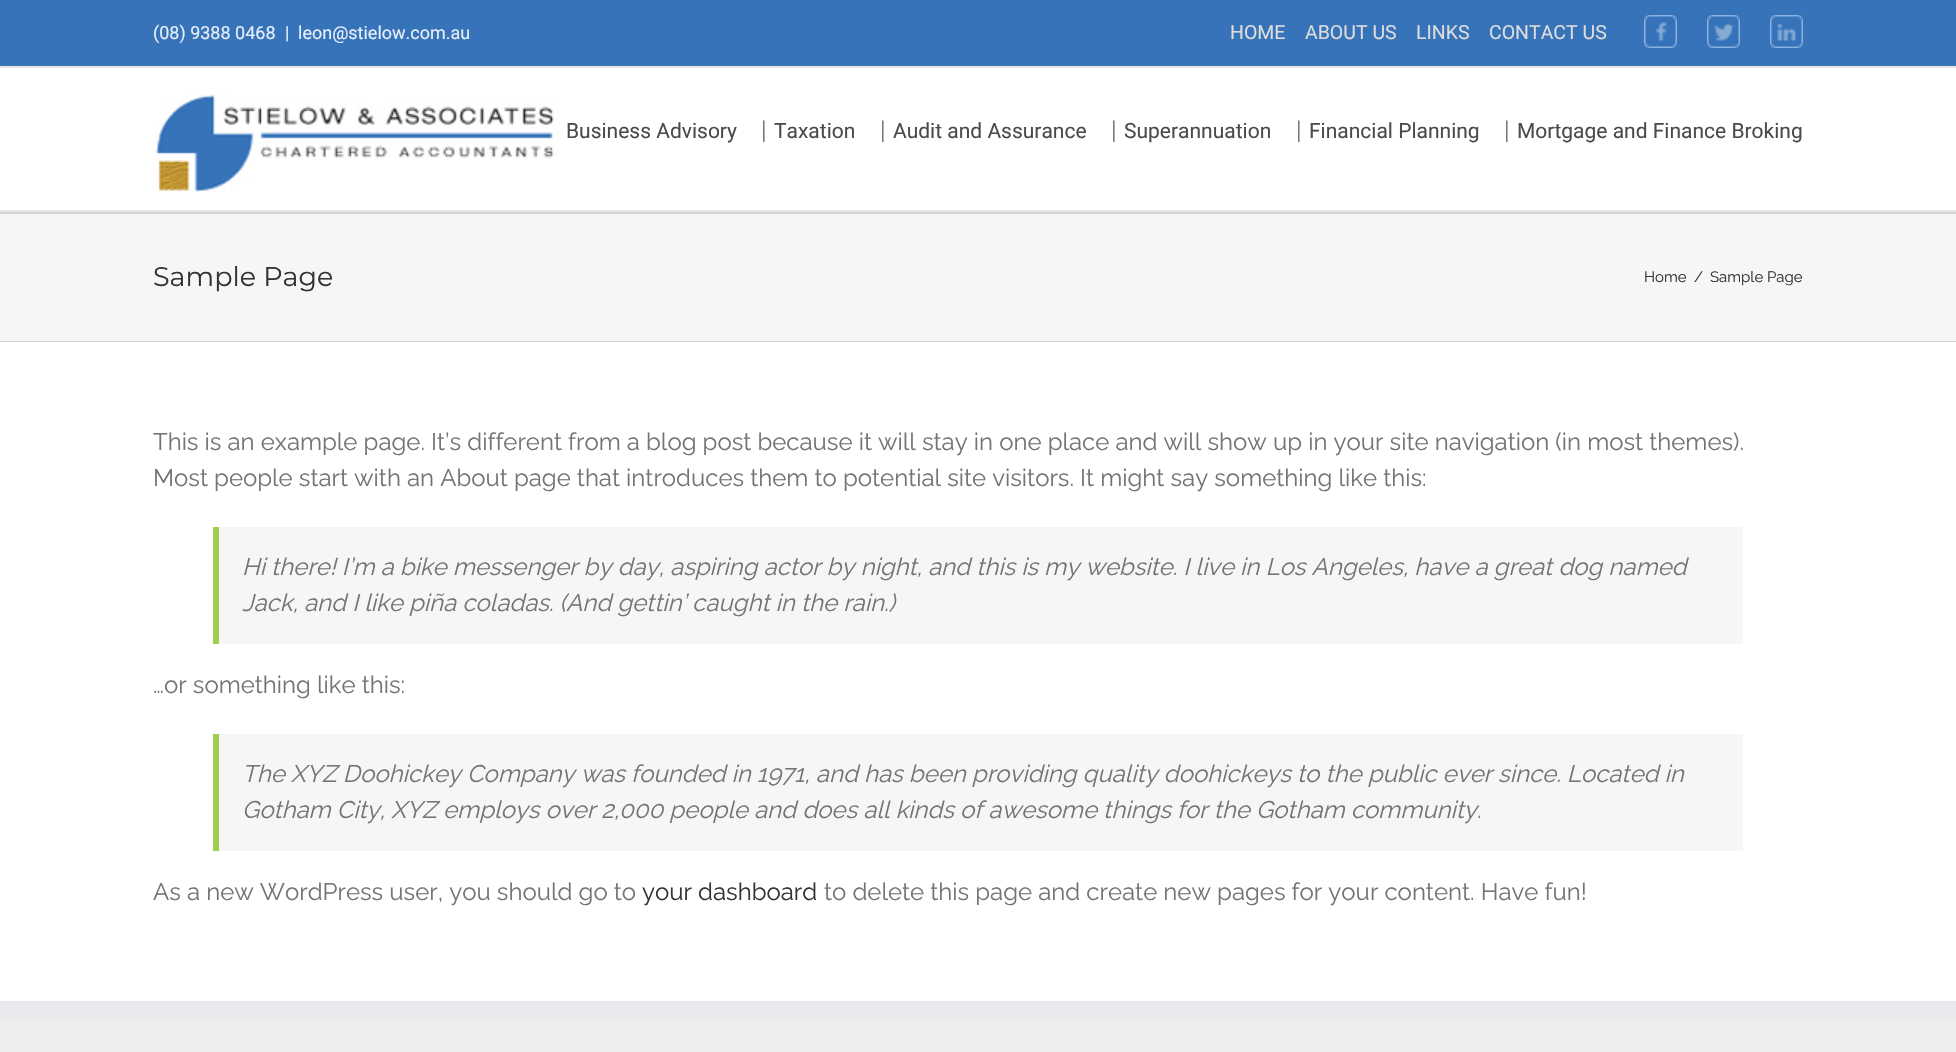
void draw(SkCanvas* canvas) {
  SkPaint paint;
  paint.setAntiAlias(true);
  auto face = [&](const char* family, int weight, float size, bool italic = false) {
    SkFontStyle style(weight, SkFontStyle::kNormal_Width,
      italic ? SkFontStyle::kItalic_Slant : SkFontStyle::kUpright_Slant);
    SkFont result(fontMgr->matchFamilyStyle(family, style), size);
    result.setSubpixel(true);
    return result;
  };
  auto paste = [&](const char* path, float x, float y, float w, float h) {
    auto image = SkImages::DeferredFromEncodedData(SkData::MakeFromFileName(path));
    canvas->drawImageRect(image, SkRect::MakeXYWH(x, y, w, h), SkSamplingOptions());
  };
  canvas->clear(0xffffffff);
  paint.setColor(0xff3673b9);
  canvas->drawRect(SkRect::MakeXYWH(0, 0, 1956, 66), paint);
  paint.setColor(0xffe5e5e5);
  canvas->drawRect(SkRect::MakeXYWH(0, 66, 1956, 2), paint);
  paste("img/1.png", 1644, 15, 33, 33);
  paste("img/2.png", 1707, 15, 33, 33);
  paste("img/3.png", 1770, 15, 33, 33);
  canvas->drawRect(SkRect::MakeXYWH(0, 210, 1956, 2), paint);
  paste("img/4.png", 155, 94, 404, 98);
  {
    const struct { float x, y, w, h; SkColor color; } items[] = {
      {0, 214, 1956, 127, 0xfff6f6f6},
      {0, 212, 1956, 2, 0xffd2d3d4},
      {0, 341, 1956, 1, 0xffd2d3d4},
      {219, 527, 1524, 117, 0xfff6f6f6},
      {213, 527, 6, 117, 0xffa0ce4e},
      {219, 734, 1524, 117, 0xfff6f6f6},
      {213, 734, 6, 117, 0xffa0ce4e},
      {0, 1019, 1956, 33, 0xffededed},
      {0, 1001, 1956, 18, 0xffe9eaee},
    };
    for (auto [x, y, w, h, color] : items) {
      paint.setColor(color);
      canvas->drawRect(SkRect::MakeXYWH(x, y, w, h), paint);
    }
  }
  auto f0 = face("Roboto", 400, 18);
  paint.setColor(0xffe6eff9);
  {
    const struct { const char* s; float x, y; } items[] = {
      {"(08) 9388 0468", 153, 39},
      {"|", 285, 39},
      {"leon@stielow.com.au", 298, 39},
    };
    for (auto [s, x, y] : items) {
      canvas->drawString(s, x, y, f0, paint);
    }
  }
  auto f1 = face("Roboto", 400, 19.5f);
  paint.setColor(0xffdddddd);
  {
    const struct { const char* s; float x, y; } items[] = {
      {"HOME", 1230, 39},
      {"ABOUT US", 1305, 39},
      {"LINKS", 1416, 39},
      {"CONTACT US", 1489, 39},
    };
    for (auto [s, x, y] : items) {
      canvas->drawString(s, x, y, f1, paint);
    }
  }
  auto f2 = face("Roboto", 400, 21);
  paint.setColor(0xff4b4b4b);
  canvas->drawString("Business Advisory", 566, 138, f2, paint);
  auto f3 = face("Raleway", 100, 24);
  paint.setColor(0xff747474);
  canvas->drawString("|", 761, 139, f3, paint);
  paint.setColor(0xff4b4b4b);
  canvas->drawString("Taxation", 774, 138, f2, paint);
  paint.setColor(0xff747474);
  canvas->drawString("|", 880, 139, f3, paint);
  paint.setColor(0xff4b4b4b);
  canvas->drawString("Audit and Assurance", 893, 138, f2, paint);
  paint.setColor(0xff747474);
  canvas->drawString("|", 1111, 139, f3, paint);
  paint.setColor(0xff4b4b4b);
  canvas->drawString("Superannuation", 1124, 138, f2, paint);
  paint.setColor(0xff747474);
  canvas->drawString("|", 1296, 139, f3, paint);
  paint.setColor(0xff4b4b4b);
  canvas->drawString("Financial Planning", 1309, 138, f2, paint);
  paint.setColor(0xff747474);
  canvas->drawString("|", 1504, 139, f3, paint);
  paint.setColor(0xff4b4b4b);
  canvas->drawString("Mortgage and Finance Broking", 1517, 138, f2, paint);
  auto f4 = face("Montserrat", 100, 27);
  paint.setColor(0xff333333);
  canvas->drawString("Sample Page", 153, 286, f4, paint);
  auto f5 = face("Raleway", 100, 15);
  {
    const struct { const char* s; float x, y; } items[] = {
      {"Home", 1644, 282},
      {"/", 1694, 282},
      {"Sample Page", 1710, 282},
    };
    for (auto [s, x, y] : items) {
      canvas->drawString(s, x, y, f5, paint);
    }
  }
  paint.setColor(0xff747474);
  canvas->drawString("This is an example page. It’s different from a blog post because it will stay in one place and will show up in your site navigation (in most themes).", 153, 450, f3, paint);
  canvas->drawString("Most people start with an About page that introduces them to potential site visitors. It might say something like this:", 153, 486, f3, paint);
  auto f6 = face("Raleway", 100, 24, true);
  canvas->drawString("Hi there! I’m a bike messenger by day, aspiring actor by night, and this is my website. I live in Los Angeles, have a great dog named", 242, 575, f6, paint);
  canvas->drawString("Jack, and I like piña coladas. (And gettin’ caught in the rain.)", 242, 611, f6, paint);
  canvas->drawString("…or something like this:", 153, 693, f3, paint);
  canvas->drawString("The XYZ Doohickey Company was founded in 1971, and has been providing quality doohickeys to the public ever since. Located in", 242, 782, f6, paint);
  canvas->drawString("Gotham City, XYZ employs over 2,000 people and does all kinds of awesome things for the Gotham community.", 242, 818, f6, paint);
  canvas->drawString("As a new WordPress user, you should go to", 153, 900, f3, paint);
  paint.setColor(0xff333333);
  canvas->drawString("your dashboard", 642, 900, f3, paint);
  paint.setColor(0xff747474);
  canvas->drawString("to delete this page and create new pages for your content. Have fun!", 824, 900, f3, paint);
}
